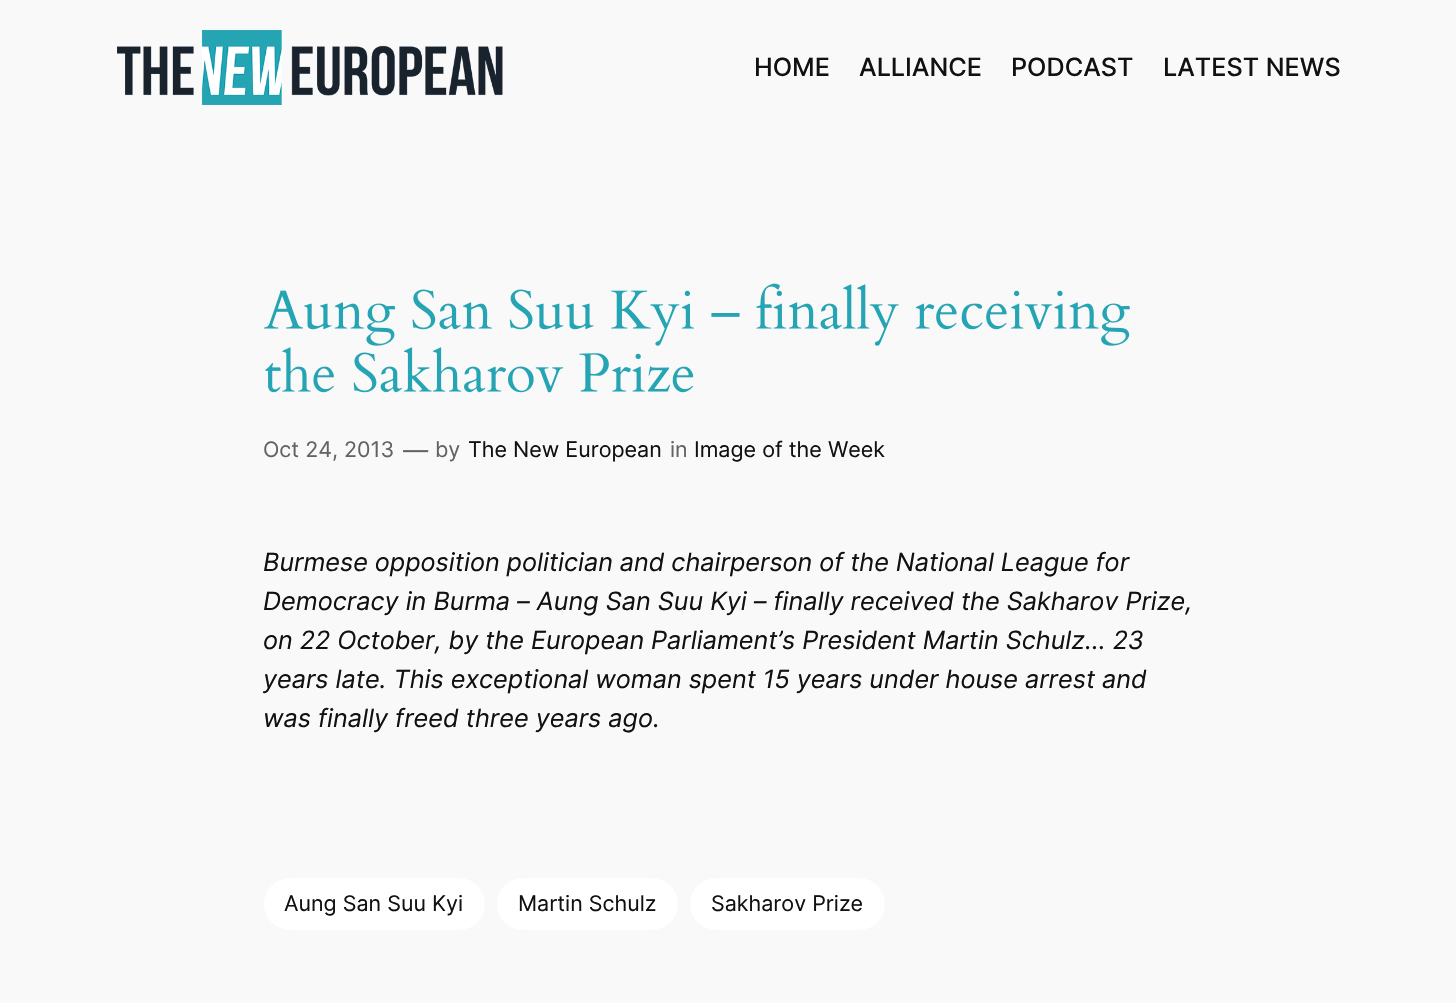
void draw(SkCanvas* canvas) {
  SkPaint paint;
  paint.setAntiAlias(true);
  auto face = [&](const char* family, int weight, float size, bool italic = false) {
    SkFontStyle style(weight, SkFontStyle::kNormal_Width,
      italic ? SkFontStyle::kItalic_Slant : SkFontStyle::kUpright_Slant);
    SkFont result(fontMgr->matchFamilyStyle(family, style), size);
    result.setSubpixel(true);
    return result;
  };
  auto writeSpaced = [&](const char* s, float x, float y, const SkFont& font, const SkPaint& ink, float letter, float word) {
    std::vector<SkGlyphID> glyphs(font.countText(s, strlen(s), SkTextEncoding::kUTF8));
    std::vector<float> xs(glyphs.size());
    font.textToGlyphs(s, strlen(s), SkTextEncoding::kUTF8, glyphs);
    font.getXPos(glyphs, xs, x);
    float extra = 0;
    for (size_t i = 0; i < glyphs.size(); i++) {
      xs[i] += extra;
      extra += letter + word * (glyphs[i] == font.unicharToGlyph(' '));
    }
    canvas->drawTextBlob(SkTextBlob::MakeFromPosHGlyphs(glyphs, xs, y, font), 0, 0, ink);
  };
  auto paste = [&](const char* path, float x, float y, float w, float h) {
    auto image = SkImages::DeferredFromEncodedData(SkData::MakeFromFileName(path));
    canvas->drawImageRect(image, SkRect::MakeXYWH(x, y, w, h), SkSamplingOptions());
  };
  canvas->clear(0xfff9f9f9);
  paste("img/1.png", 117, 30, 386, 75);
  paste("img/2.png", 264, 283, 866, 63);
  paste("img/3.png", 265, 347, 429, 46);
  paint.setColor(0xffffffff);
  canvas->drawRoundRect(SkRect::MakeXYWH(264, 878, 221, 52), 26, 26, paint);
  canvas->drawRoundRect(SkRect::MakeXYWH(497, 878, 181, 52), 26, 26, paint);
  canvas->drawRoundRect(SkRect::MakeXYWH(690, 878, 195, 52), 26, 26, paint);
  auto f0 = face("Inter", 500, 25.2f);
  paint.setColor(0xff111111);
  {
    const struct { const char* s; float x, y; } items[] = {
      {"HOME", 754, 76},
      {"ALLIANCE", 859, 76},
      {"PODCAST", 1011, 76},
      {"LATEST NEWS", 1163, 76},
    };
    for (auto [s, x, y] : items) {
      canvas->drawString(s, x, y, f0, paint);
    }
  }
  auto f1 = face("Inter", 400, 21.5f);
  paint.setColor(0xff636363);
  canvas->drawString("Oct 24, 2013", 263, 457, f1, paint);
  auto f2 = face("Inter", 400, 25.2f);
  canvas->drawString("—", 403, 459, f2, paint);
  canvas->drawString("by", 435, 457, f1, paint);
  paint.setColor(0xff111111);
  canvas->drawString("The New European", 468, 457, f1, paint);
  paint.setColor(0xff636363);
  canvas->drawString("in", 670, 457, f1, paint);
  paint.setColor(0xff111111);
  canvas->drawString("Image of the Week", 694, 457, f1, paint);
  auto f3 = face("Inter", 400, 25.2f, true);
  writeSpaced("Burmese opposition politician and chairperson of the National League for", 263, 571, f3, paint, 0, -0.25f);
  canvas->drawString("Democracy in Burma – Aung San Suu Kyi – finally received the Sakharov Prize,", 263, 610, f3, paint);
  writeSpaced("on 22 October, by the European Parliament’s President Martin Schulz… 23", 263, 649, f3, paint, 0, -0.1f);
  writeSpaced("years late. This exceptional woman spent 15 years under house arrest and", 263, 688, f3, paint, 0, -0.1f);
  canvas->drawString("was finally freed three years ago.", 263, 727, f3, paint);
  {
    const struct { const char* s; float x, y; } items[] = {
      {"Aung San Suu Kyi", 284, 911},
      {"Martin Schulz", 518, 911},
      {"Sakharov Prize", 711, 911},
    };
    for (auto [s, x, y] : items) {
      canvas->drawString(s, x, y, f1, paint);
    }
  }
}
